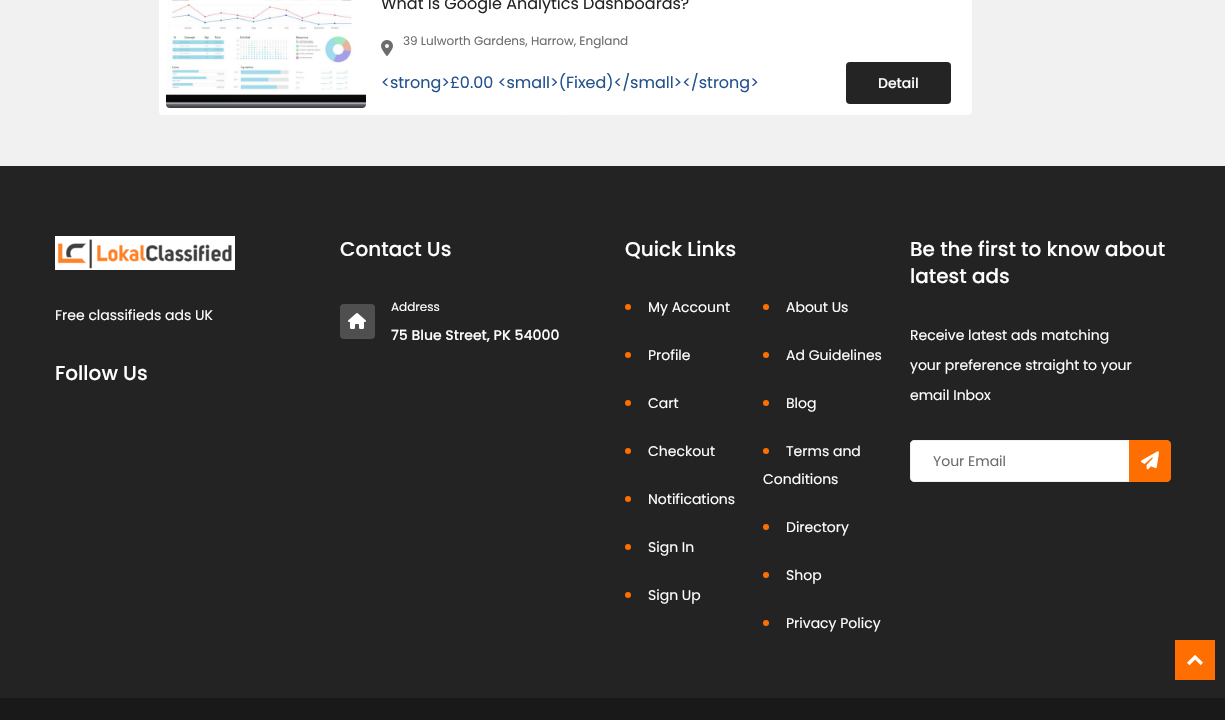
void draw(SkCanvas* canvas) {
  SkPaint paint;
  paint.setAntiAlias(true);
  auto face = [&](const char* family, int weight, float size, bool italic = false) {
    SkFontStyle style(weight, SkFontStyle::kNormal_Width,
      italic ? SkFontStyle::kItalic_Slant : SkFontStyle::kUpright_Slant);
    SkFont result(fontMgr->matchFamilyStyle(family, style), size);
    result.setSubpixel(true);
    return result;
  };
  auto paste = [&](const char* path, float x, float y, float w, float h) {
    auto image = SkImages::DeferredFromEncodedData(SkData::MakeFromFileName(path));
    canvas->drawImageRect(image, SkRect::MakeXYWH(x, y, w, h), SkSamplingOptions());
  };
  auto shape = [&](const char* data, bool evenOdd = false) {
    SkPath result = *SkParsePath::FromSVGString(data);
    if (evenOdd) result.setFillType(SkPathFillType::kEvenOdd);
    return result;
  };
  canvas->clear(0xfff1f1f1);
  paint.setColor(0xffffffff);
  canvas->drawRoundRect(SkRect::MakeXYWH(158.5f, -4.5f, 814, 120), 3.5f, 3.5f, paint);
  paint.setStroke(true);
  paint.setStrokeWidth(1);
  paint.setColor(0xfff0f0f0);
  canvas->drawRoundRect(SkRect::MakeXYWH(158.5f, -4.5f, 814, 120), 3.5f, 3.5f, paint);
  paste("img/1.png", 166, 0, 200, 108);
  paste("img/2.png", 381, 40, 12, 16);
  paint.setStroke(false);
  paint.setColor(0xff242424);
  canvas->drawRoundRect(SkRect::MakeXYWH(846, 62, 105, 42), 4, 4, paint);
  paint.setColor(0xff232323);
  canvas->drawRect(SkRect::MakeXYWH(0, 166, 1225, 532), paint);
  paste("img/3.png", 55, 236, 180, 34);
  paint.setColor(0xff4f4f4f);
  canvas->drawRoundRect(SkRect::MakeXYWH(340, 304, 35, 35), 4, 4, paint);
  paste("img/4.png", 348, 313, 18, 16);
  paint.setColor(0xffff6e00);
  canvas->drawCircle(628, 307, 3, paint);
  canvas->drawCircle(766, 307, 3, paint);
  canvas->drawCircle(628, 355, 3, paint);
  canvas->drawCircle(766, 355, 3, paint);
  canvas->drawCircle(628, 403, 3, paint);
  canvas->drawCircle(766, 403, 3, paint);
  canvas->drawCircle(628, 451, 3, paint);
  canvas->drawCircle(766, 451, 3, paint);
  canvas->drawCircle(628, 499, 3, paint);
  canvas->drawCircle(766, 527, 3, paint);
  canvas->drawCircle(628, 547, 3, paint);
  canvas->drawCircle(766, 575, 3, paint);
  canvas->drawCircle(628, 595, 3, paint);
  canvas->drawCircle(766, 623, 3, paint);
  paint.setColor(0xffffffff);
  canvas->drawPath(shape("M914 440.5H1129.5V481.5H914C912 481.5 910.5 480 910.5 478V444C910.5 442 912 440.5 914 440.5Z"), paint);
  paint.setStroke(true);
  paint.setColor(0xfff0f0f0);
  canvas->drawPath(shape("M914 440.5H1129.5V481.5H914C912 481.5 910.5 480 910.5 478V444C910.5 442 912 440.5 914 440.5Z"), paint);
  paint.setStroke(false);
  paint.setColor(0xffff6e00);
  canvas->drawPath(shape("M1129.5 440.5H1167C1169 440.5 1170.5 442 1170.5 444V478C1170.5 480 1169 481.5 1167 481.5H1129.5Z"), paint);
  paint.setStroke(true);
  canvas->drawPath(shape("M1129.5 440.5H1167C1169 440.5 1170.5 442 1170.5 444V478C1170.5 480 1169 481.5 1167 481.5H1129.5Z"), paint);
  paste("img/5.png", 1141, 451, 18, 19);
  paint.setStroke(false);
  canvas->drawRect(SkRect::MakeXYWH(1175, 640, 40, 40), paint);
  paste("img/6.png", 1187, 655, 16, 11);
  paint.setColor(0xff191919);
  canvas->drawRect(SkRect::MakeXYWH(0, 698, 1225, 22), paint);
  auto f0 = face("Poppins", 400, 16);
  paint.setColor(0xff242424);
  canvas->drawString("What Is Google Analytics Dashboards?", 381, 9, f0, paint);
  auto f1 = face("Poppins", 400, 12);
  paint.setColor(0xff6d6d6d);
  canvas->drawString("39 Lulworth Gardens, Harrow, England", 403, 45, f1, paint);
  paint.setColor(0xff22518e);
  canvas->drawString("<strong>£0.00 <small>(Fixed)</small></strong>", 381, 88, f0, paint);
  auto f2 = face("Poppins", 500, 14);
  paint.setColor(0xffffffff);
  canvas->drawString("Detail", 878, 88, f2, paint);
  auto f3 = face("Poppins", 400, 14);
  canvas->drawString("Free classifieds ads UK", 55, 320, f3, paint);
  auto f4 = face("Poppins", 500, 20);
  canvas->drawString("Follow Us", 55, 380, f4, paint);
  canvas->drawString("Contact Us", 340, 256, f4, paint);
  canvas->drawString("Address", 391, 311, f1, paint);
  canvas->drawString("75 Blue Street, PK 54000", 391, 340, f2, paint);
  canvas->drawString("Quick Links", 625, 256, f4, paint);
  {
    const struct { const char* s; float x, y; } items[] = {
      {"My Account", 648, 312},
      {"About Us", 786, 312},
      {"Profile", 648, 360},
      {"Ad Guidelines", 786, 360},
      {"Cart", 648, 408},
      {"Blog", 786, 408},
      {"Checkout", 648, 456},
      {"Terms and", 786, 456},
      {"Conditions", 763, 484},
      {"Notifications", 648, 504},
      {"Directory", 786, 532},
      {"Sign In", 648, 552},
      {"Shop", 786, 580},
      {"Sign Up", 648, 600},
      {"Privacy Policy", 786, 628},
    };
    for (auto [s, x, y] : items) {
      canvas->drawString(s, x, y, f3, paint);
    }
  }
  canvas->drawString("Be the first to know about", 910, 256, f4, paint);
  canvas->drawString("latest ads", 910, 283, f4, paint);
  {
    const struct { const char* s; float x, y; } items[] = {
      {"Receive latest ads matching", 910, 340},
      {"your preference straight to your", 910, 370},
      {"email Inbox", 910, 400},
    };
    for (auto [s, x, y] : items) {
      canvas->drawString(s, x, y, f3, paint);
    }
  }
  paint.setColor(0xff6d6d6d);
  canvas->drawString("Your Email", 933, 466, f3, paint);
}
